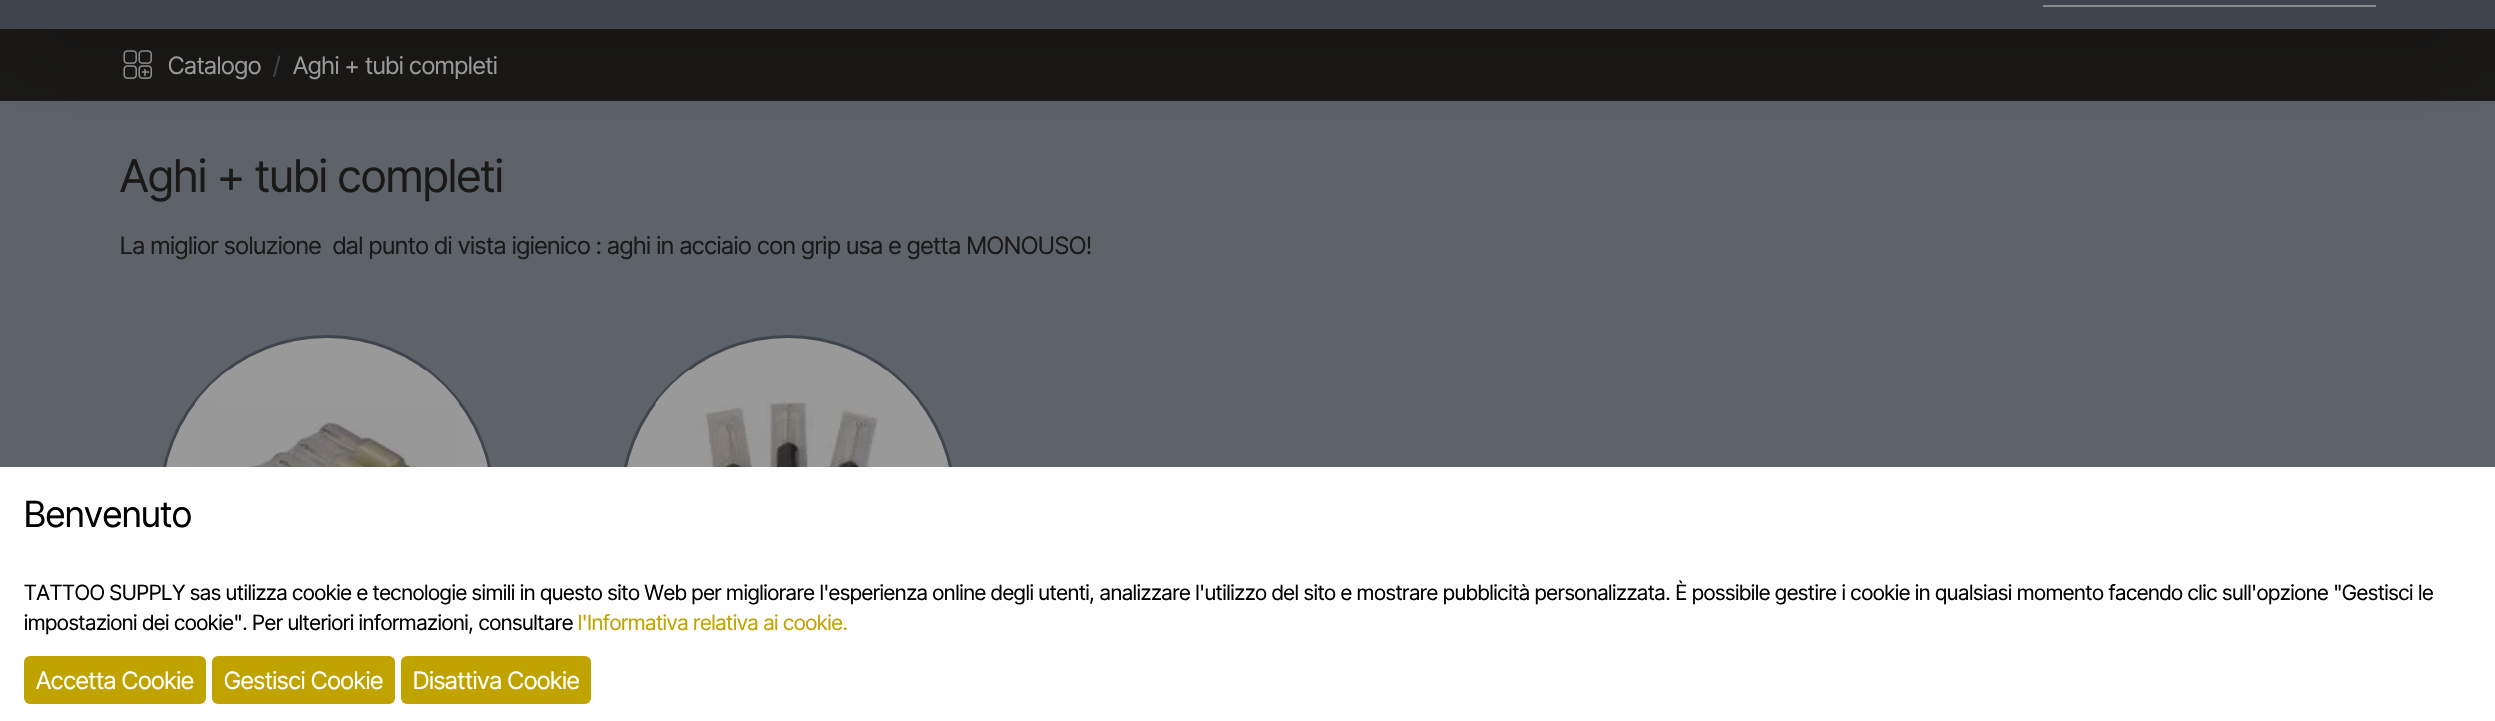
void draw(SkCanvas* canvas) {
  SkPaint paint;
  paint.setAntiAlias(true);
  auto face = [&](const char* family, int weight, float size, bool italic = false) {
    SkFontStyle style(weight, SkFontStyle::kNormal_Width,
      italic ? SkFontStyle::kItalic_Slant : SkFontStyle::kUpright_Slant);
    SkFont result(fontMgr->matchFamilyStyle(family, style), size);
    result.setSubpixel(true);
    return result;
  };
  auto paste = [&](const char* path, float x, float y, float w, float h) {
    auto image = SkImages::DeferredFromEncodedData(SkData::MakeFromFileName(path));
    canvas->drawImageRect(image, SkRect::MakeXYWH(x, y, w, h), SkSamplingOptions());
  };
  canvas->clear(0xff1a1918);
  paste("img/1.png", 123, 50, 29, 29);
  paint.setColor(0xff5e6269);
  canvas->drawRect(SkRect::MakeXYWH(0, 101, 2495, 366), paint);
  paint.setColor(0x40000000);
  paint.setMaskFilter(SkMaskFilter::MakeBlur(kNormal_SkBlurStyle, 37.5f));
  canvas->drawRect(SkRect::MakeXYWH(18, 0, 2460, 48), paint);
  paint.setMaskFilter(nullptr);
  paint.setColor(0xff40444d);
  canvas->drawRect(SkRect::MakeXYWH(0, 0, 2495, 29), paint);
  paint.setColor(0xff898b8d);
  canvas->drawRect(SkRect::MakeXYWH(2043, 5, 333, 2), paint);
  paint.setColor(0xff999999);
  canvas->drawCircle(327, 503, 166.5f, paint);
  paint.setStroke(true);
  paint.setStrokeWidth(3);
  paint.setColor(0xff40444d);
  canvas->drawCircle(327, 503, 166.5f, paint);
  paste("img/2.png", 195, 370, 264, 97);
  paint.setStroke(false);
  paint.setColor(0xff999999);
  canvas->drawCircle(788, 503, 166.5f, paint);
  paint.setStroke(true);
  paint.setColor(0xff40444d);
  canvas->drawCircle(788, 503, 166.5f, paint);
  paste("img/3.png", 655, 370, 265, 97);
  paint.setStroke(false);
  paint.setColor(0xfffefefe);
  canvas->drawRect(SkRect::MakeXYWH(0, 467, 2495, 254), paint);
  paint.setColor(0xffc1a300);
  canvas->drawRoundRect(SkRect::MakeXYWH(24, 656, 182, 48), 6, 6, paint);
  canvas->drawRoundRect(SkRect::MakeXYWH(212, 656, 183, 48), 6, 6, paint);
  canvas->drawRoundRect(SkRect::MakeXYWH(401, 656, 190, 48), 6, 6, paint);
  auto f0 = face("Inter Tight", 400, 24);
  paint.setColor(0xff999999);
  canvas->drawString("Catalogo", 168, 74, f0, paint);
  paint.setColor(0xff40444d);
  canvas->drawString("/", 273, 74, f0, paint);
  paint.setColor(0xff999999);
  canvas->drawString("Aghi + tubi completi", 293, 74, f0, paint);
  auto f1 = face("Inter Tight", 400, 45);
  paint.setColor(0xff1a1918);
  canvas->drawString("Aghi + tubi completi", 120, 192, f1, paint);
  canvas->drawString("La miglior soluzione  dal punto di vista igienico : aghi in acciaio con grip usa e getta MONOUSO!", 120, 254, f0, paint);
  auto f2 = face("Inter Tight", 400, 36);
  paint.setColor(0xff000000);
  canvas->drawString("Benvenuto", 24, 527, f2, paint);
  auto f3 = face("Inter Tight", 400, 21);
  canvas->drawString("TATTOO SUPPLY sas utilizza cookie e tecnologie simili in questo sito Web per migliorare l'esperienza online degli utenti, analizzare l'utilizzo del sito e mostrare pubblicità personalizzata. È possibile gestire i cookie in qualsiasi momento facendo clic sull'opzione \"Gestisci le", 24, 600, f3, paint);
  canvas->drawString("impostazioni dei cookie\". Per ulteriori informazioni, consultare", 24, 630, f3, paint);
  paint.setColor(0xffc1a300);
  canvas->drawString("l'Informativa relativa ai cookie.", 578, 630, f3, paint);
  paint.setColor(0xffffffff);
  {
    const struct { const char* s; float x, y; } items[] = {
      {"Accetta Cookie", 36, 689},
      {"Gestisci Cookie", 224, 689},
      {"Disattiva Cookie", 413, 689},
    };
    for (auto [s, x, y] : items) {
      canvas->drawString(s, x, y, f0, paint);
    }
  }
}
